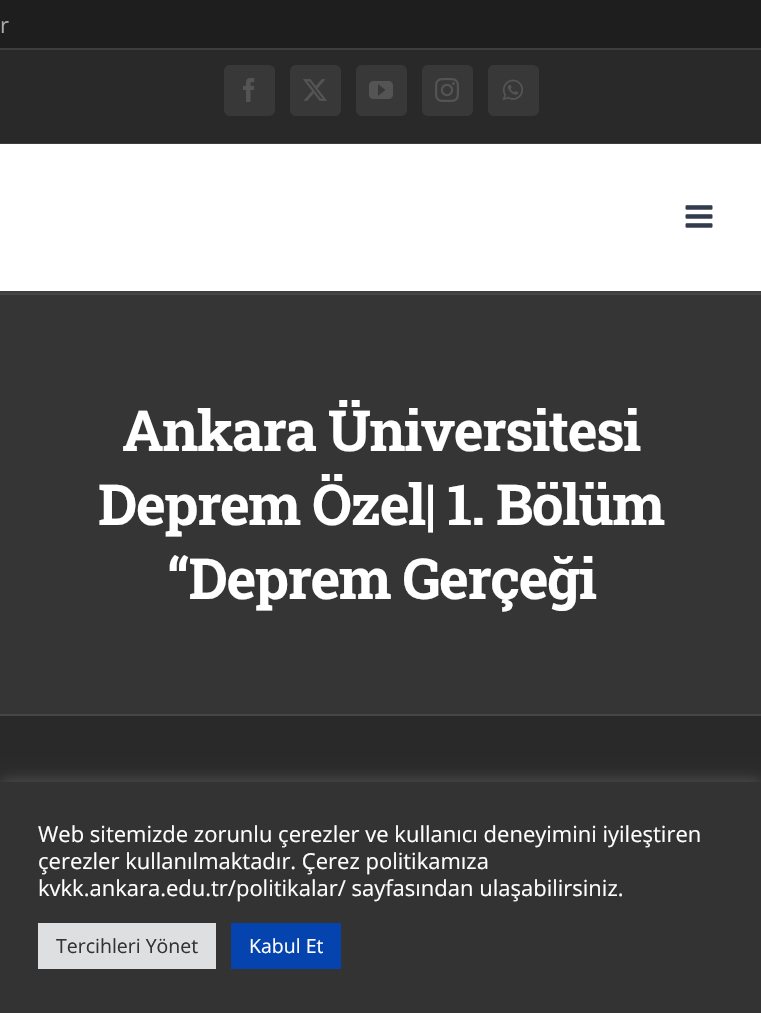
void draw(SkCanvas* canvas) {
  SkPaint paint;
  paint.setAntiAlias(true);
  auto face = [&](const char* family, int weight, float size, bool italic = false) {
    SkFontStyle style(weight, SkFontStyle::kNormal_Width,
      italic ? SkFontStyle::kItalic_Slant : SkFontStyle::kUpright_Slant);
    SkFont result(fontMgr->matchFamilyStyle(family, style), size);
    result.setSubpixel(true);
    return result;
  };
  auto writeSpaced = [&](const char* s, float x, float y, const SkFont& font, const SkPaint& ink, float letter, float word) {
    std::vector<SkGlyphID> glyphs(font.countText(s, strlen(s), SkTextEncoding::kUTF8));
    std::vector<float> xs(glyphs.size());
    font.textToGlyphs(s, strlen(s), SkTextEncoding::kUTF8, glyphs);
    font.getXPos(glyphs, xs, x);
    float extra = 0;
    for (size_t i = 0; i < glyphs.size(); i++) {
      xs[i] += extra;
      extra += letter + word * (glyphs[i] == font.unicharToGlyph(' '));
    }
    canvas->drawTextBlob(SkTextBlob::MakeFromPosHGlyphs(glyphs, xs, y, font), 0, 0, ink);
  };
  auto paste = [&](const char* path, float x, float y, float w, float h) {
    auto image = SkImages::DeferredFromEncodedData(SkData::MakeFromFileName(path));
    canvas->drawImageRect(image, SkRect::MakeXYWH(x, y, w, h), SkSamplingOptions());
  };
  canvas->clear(0xff1e1e1e);
  {
    const struct { float x, y, w, h; SkColor color; } items[] = {
      {0, 50, 761, 93, 0xff29292a},
      {0, 143, 761, 1, 0xff3e3e3e},
      {0, 48, 761, 2, 0xff3e3e3e},
    };
    for (auto [x, y, w, h, color] : items) {
      paint.setColor(color);
      canvas->drawRect(SkRect::MakeXYWH(x, y, w, h), paint);
    }
  }
  paint.setColor(0xff383838);
  canvas->drawRoundRect(SkRect::MakeXYWH(225, 66, 49, 49), 5, 5, paint);
  paint.setStroke(true);
  paint.setStrokeWidth(2);
  canvas->drawRoundRect(SkRect::MakeXYWH(225, 66, 49, 49), 5, 5, paint);
  paste("img/1.png", 243, 78, 12, 24);
  paint.setStroke(false);
  canvas->drawRoundRect(SkRect::MakeXYWH(291, 66, 49, 49), 5, 5, paint);
  paint.setStroke(true);
  canvas->drawRoundRect(SkRect::MakeXYWH(291, 66, 49, 49), 5, 5, paint);
  paste("img/2.png", 303, 79, 24, 22);
  paint.setStroke(false);
  canvas->drawRoundRect(SkRect::MakeXYWH(357, 66, 49, 49), 5, 5, paint);
  paint.setStroke(true);
  canvas->drawRoundRect(SkRect::MakeXYWH(357, 66, 49, 49), 5, 5, paint);
  paste("img/3.png", 369, 81, 24, 18);
  paint.setStroke(false);
  canvas->drawRoundRect(SkRect::MakeXYWH(423, 66, 49, 49), 5, 5, paint);
  paint.setStroke(true);
  canvas->drawRoundRect(SkRect::MakeXYWH(423, 66, 49, 49), 5, 5, paint);
  paste("img/4.png", 435, 78, 24, 24);
  paint.setStroke(false);
  canvas->drawRoundRect(SkRect::MakeXYWH(489, 66, 49, 49), 5, 5, paint);
  paint.setStroke(true);
  canvas->drawRoundRect(SkRect::MakeXYWH(489, 66, 49, 49), 5, 5, paint);
  paste("img/5.png", 502, 79, 21, 21);
  paint.setStroke(false);
  paint.setColor(0xffffffff);
  canvas->drawRect(SkRect::MakeXYWH(0, 144, 761, 147), paint);
  paint.setColor(0xff3e3e3e);
  canvas->drawRect(SkRect::MakeXYWH(0, 291, 761, 2), paint);
  paste("img/6.png", 685, 205, 28, 23);
  {
    const struct { float x, y, w, h; SkColor color; } items[] = {
      {0, 295, 761, 419, 0xff353535},
      {0, 293, 761, 2, 0xff464646},
      {0, 714, 761, 2, 0xff464646},
      {0, 716, 761, 66, 0xff29292a},
    };
    for (auto [x, y, w, h, color] : items) {
      paint.setColor(color);
      canvas->drawRect(SkRect::MakeXYWH(x, y, w, h), paint);
    }
  }
  paint.setColor(0x4dacabab);
  paint.setMaskFilter(SkMaskFilter::MakeBlur(kNormal_SkBlurStyle, 7.5f));
  canvas->drawRect(SkRect::MakeXYWH(0, 780, 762, 233), paint);
  paint.setMaskFilter(nullptr);
  {
    const struct { float x, y, w, h; SkColor color; } items[] = {
      {0, 782, 761, 231, 0xff333333},
      {38, 923, 178, 46, 0xffdedfe0},
      {231, 923, 110, 46, 0xff0544ae},
    };
    for (auto [x, y, w, h, color] : items) {
      paint.setColor(color);
      canvas->drawRect(SkRect::MakeXYWH(x, y, w, h), paint);
    }
  }
  auto f0 = face("Open Sans", 400, 22);
  paint.setColor(0xffaaa9a9);
  canvas->drawString("r", 0, 33, f0, paint);
  auto f1 = face("Roboto Slab", 700, 56.6f);
  paint.setColor(0xffffffff);
  {
    const struct { const char* s; float x, y; } items[] = {
      {"Ankara Üniversitesi", 122, 451},
      {"Deprem Özel| 1. Bölüm", 98, 525},
      {"“Deprem Gerçeği", 167, 599},
    };
    for (auto [s, x, y] : items) {
      writeSpaced(s, x, y, f1, paint, -1.5f, 0);
    }
  }
  {
    const struct { const char* s; float x, y; } items[] = {
      {"Web sitemizde zorunlu çerezler ve kullanıcı deneyimini iyileştiren", 38, 842},
      {"çerezler kullanılmaktadır. Çerez politikamıza", 38, 869},
      {"kvkk.ankara.edu.tr/politikalar/ sayfasından ulaşabilirsiniz.", 38, 896},
    };
    for (auto [s, x, y] : items) {
      canvas->drawString(s, x, y, f0, paint);
    }
  }
  auto f2 = face("Open Sans", 400, 19.5f);
  paint.setColor(0xff333333);
  canvas->drawString("Tercihleri Yönet", 56, 953, f2, paint);
  paint.setColor(0xffffffff);
  canvas->drawString("Kabul Et", 249, 953, f2, paint);
}
